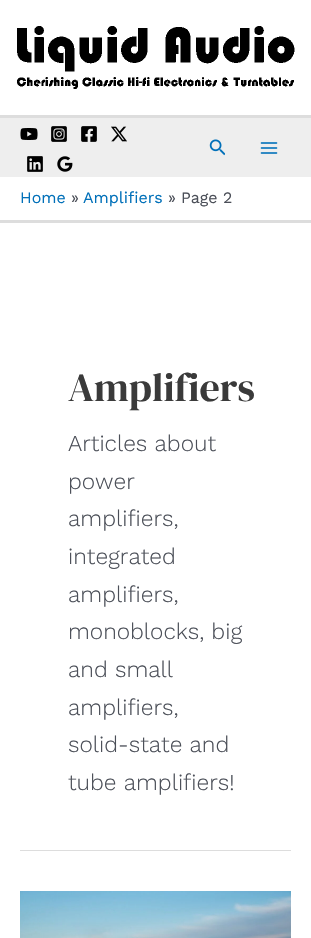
void draw(SkCanvas* canvas) {
  SkPaint paint;
  paint.setAntiAlias(true);
  auto face = [&](const char* family, int weight, float size, bool italic = false) {
    SkFontStyle style(weight, SkFontStyle::kNormal_Width,
      italic ? SkFontStyle::kItalic_Slant : SkFontStyle::kUpright_Slant);
    SkFont result(fontMgr->matchFamilyStyle(family, style), size);
    result.setSubpixel(true);
    return result;
  };
  auto paste = [&](const char* path, float x, float y, float w, float h) {
    auto image = SkImages::DeferredFromEncodedData(SkData::MakeFromFileName(path));
    canvas->drawImageRect(image, SkRect::MakeXYWH(x, y, w, h), SkSamplingOptions());
  };
  canvas->clear(0xffffffff);
  paint.setColor(0xffdddddd);
  canvas->drawRect(SkRect::MakeXYWH(0, 115, 311, 3), paint);
  paste("img/1.png", 17, 26, 278, 63);
  paint.setColor(0xffeeeeee);
  canvas->drawRect(SkRect::MakeXYWH(0, 118, 311, 59), paint);
  paste("img/2.png", 20, 128, 18, 12);
  paste("img/3.png", 51, 126, 16, 16);
  paste("img/4.png", 81, 126, 16, 16);
  paste("img/5.png", 111, 126, 16, 16);
  paste("img/6.png", 27, 156, 16, 16);
  paste("img/7.png", 57, 156, 16, 16);
  paste("img/8.png", 209, 139, 16, 17);
  paste("img/9.png", 260, 142, 18, 12);
  paint.setColor(0xffdddddd);
  canvas->drawRect(SkRect::MakeXYWH(0, 220, 311, 3), paint);
  canvas->drawRect(SkRect::MakeXYWH(20, 850, 271, 1), paint);
  paste("img/10.png", 20, 891, 271, 47);
  auto f0 = face("Work Sans", 400, 16);
  paint.setColor(0xff0170b9);
  canvas->drawString("Home", 20, 203, f0, paint);
  paint.setColor(0xff4b4f58);
  canvas->drawString("»", 71, 203, f0, paint);
  paint.setColor(0xff0170b9);
  canvas->drawString("Amplifiers", 83, 203, f0, paint);
  paint.setColor(0xff4b4f58);
  canvas->drawString("»", 168, 203, f0, paint);
  canvas->drawString("Page 2", 181, 203, f0, paint);
  auto f1 = face("DM Serif Display", 400, 40);
  paint.setColor(0xff3a3a3a);
  canvas->drawString("Amplifiers", 68, 401, f1, paint);
  auto f2 = face("Work Sans", 300, 22.75f);
  paint.setColor(0xff4b4f58);
  {
    const struct { const char* s; float x, y; } items[] = {
      {"Articles about", 68, 451},
      {"power", 68, 489},
      {"amplifiers,", 68, 526},
      {"integrated", 68, 564},
      {"amplifiers,", 68, 602},
      {"monoblocks, big", 68, 639},
      {"and small", 68, 677},
      {"amplifiers,", 68, 715},
      {"solid-state and", 68, 752},
      {"tube amplifiers!", 68, 790},
    };
    for (auto [s, x, y] : items) {
      canvas->drawString(s, x, y, f2, paint);
    }
  }
}
